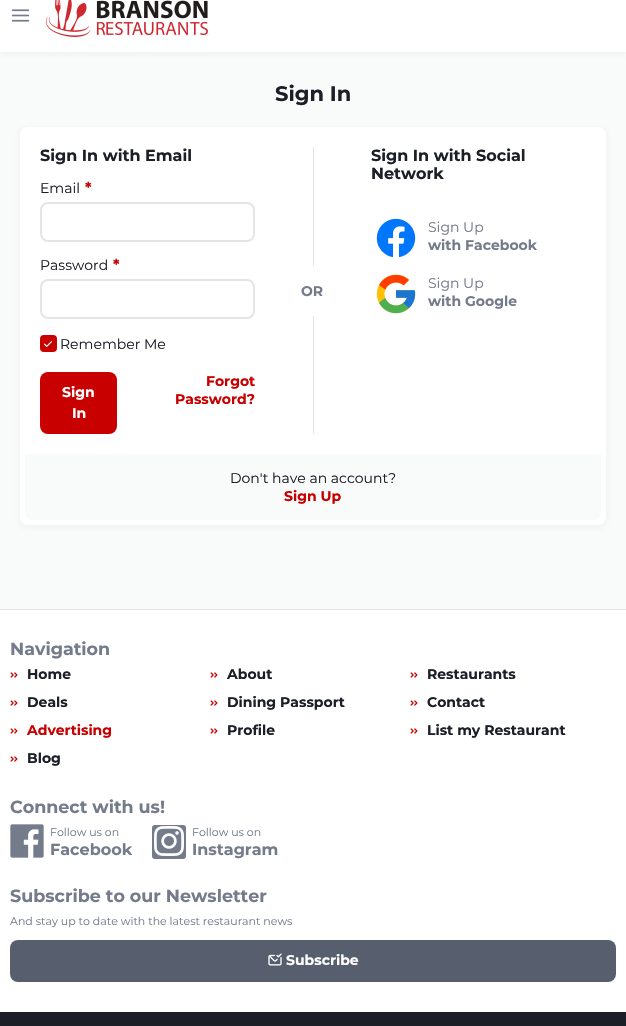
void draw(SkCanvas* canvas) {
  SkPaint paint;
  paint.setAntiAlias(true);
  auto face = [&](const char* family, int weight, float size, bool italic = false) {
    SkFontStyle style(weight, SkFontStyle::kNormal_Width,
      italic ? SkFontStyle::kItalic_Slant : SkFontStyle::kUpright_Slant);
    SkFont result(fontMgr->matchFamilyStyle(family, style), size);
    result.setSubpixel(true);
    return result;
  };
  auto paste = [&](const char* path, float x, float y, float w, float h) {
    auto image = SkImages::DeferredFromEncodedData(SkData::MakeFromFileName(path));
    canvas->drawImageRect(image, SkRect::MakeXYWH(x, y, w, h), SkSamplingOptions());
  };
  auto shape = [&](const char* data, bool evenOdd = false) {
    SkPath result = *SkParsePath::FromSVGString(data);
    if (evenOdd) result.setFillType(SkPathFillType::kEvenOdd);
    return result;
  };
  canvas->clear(0xfff9fafa);
  paint.setColor(0x0d20232c);
  paint.setMaskFilter(SkMaskFilter::MakeBlur(kNormal_SkBlurStyle, 4));
  canvas->drawRect(SkRect::MakeXYWH(0, -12, 626, 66), paint);
  paint.setMaskFilter(nullptr);
  paint.setColor(0xffffffff);
  canvas->drawRect(SkRect::MakeXYWH(0, 0, 626, 52), paint);
  paste("img/1.png", 11, 9, 19, 13);
  paste("img/2.png", 46, 0, 164, 37);
  paint.setColor(0x0d20232c);
  paint.setMaskFilter(SkMaskFilter::MakeBlur(kNormal_SkBlurStyle, 4));
  canvas->drawRoundRect(SkRect::MakeXYWH(20, 129, 586, 398), 8, 8, paint);
  paint.setMaskFilter(nullptr);
  paint.setColor(0xffffffff);
  canvas->drawRoundRect(SkRect::MakeXYWH(20, 127, 586, 398), 8, 8, paint);
  paint.setStroke(true);
  paint.setStrokeWidth(2);
  paint.setColor(0xffe3e5e8);
  canvas->drawRoundRect(SkRect::MakeXYWH(41, 203, 213, 38), 7, 7, paint);
  canvas->drawRoundRect(SkRect::MakeXYWH(41, 280, 213, 38), 7, 7, paint);
  paint.setStroke(false);
  paint.setColor(0xffc90000);
  canvas->drawRoundRect(SkRect::MakeXYWH(41, 336, 15, 15), 3, 3, paint);
  paint.setStroke(true);
  canvas->drawRoundRect(SkRect::MakeXYWH(41, 336, 15, 15), 3, 3, paint);
  paste("img/3.png", 43, 341, 10, 6);
  paint.setStroke(false);
  canvas->drawRoundRect(SkRect::MakeXYWH(40, 372, 77, 62), 8, 8, paint);
  paint.setColor(0xffe3e5e8);
  canvas->drawRect(SkRect::MakeXYWH(313, 147, 1, 287), paint);
  paint.setColor(0xffffffff);
  canvas->drawCircle(313, 291, 25, paint);
  paste("img/4.png", 376, 218, 40, 40);
  paste("img/5.png", 376, 274, 40, 40);
  paint.setColor(0xfff9fafa);
  canvas->drawPath(shape("M25 454H601V512C601 516.5 597.5 520 593 520H33C28.5 520 25 516.5 25 512Z"), paint);
  paint.setColor(0xffffffff);
  canvas->drawRect(SkRect::MakeXYWH(0, 610, 626, 402), paint);
  paint.setColor(0xffe3e5e8);
  canvas->drawRect(SkRect::MakeXYWH(0, 609, 626, 1), paint);
  paste("img/6.png", 10, 672, 8, 6);
  paste("img/6.png", 210, 672, 8, 6);
  paste("img/6.png", 410, 672, 8, 6);
  paste("img/6.png", 10, 700, 8, 6);
  paste("img/6.png", 210, 700, 8, 6);
  paste("img/6.png", 410, 700, 8, 6);
  paste("img/6.png", 10, 728, 8, 6);
  paste("img/6.png", 210, 728, 8, 6);
  paste("img/6.png", 410, 728, 8, 6);
  paste("img/6.png", 10, 756, 8, 6);
  paste("img/7.png", 10, 824, 34, 34);
  paint.setColor(0xff747b8b);
  canvas->drawRoundRect(SkRect::MakeXYWH(152, 825, 34, 34), 3, 3, paint);
  paste("img/8.png", 154, 826, 30, 30);
  paint.setColor(0xff575e6e);
  canvas->drawRoundRect(SkRect::MakeXYWH(10, 940, 606, 42), 8, 8, paint);
  paste("img/9.png", 268, 953, 14, 13);
  paint.setColor(0xff1c1f27);
  canvas->drawRect(SkRect::MakeXYWH(0, 1012, 626, 14), paint);
  auto f0 = face("Montserrat", 700, 21);
  canvas->drawString("Sign In", 275, 101, f0, paint);
  auto f1 = face("Montserrat", 700, 16);
  canvas->drawString("Sign In with Email", 40, 161, f1, paint);
  auto f2 = face("Montserrat", 400, 14);
  canvas->drawString("Email", 40, 193, f2, paint);
  auto f3 = face("Montserrat", 700, 15);
  paint.setColor(0xffc90000);
  canvas->drawString("*", 85, 193, f3, paint);
  paint.setColor(0xff1c1f27);
  canvas->drawString("Password", 40, 270, f2, paint);
  paint.setColor(0xffc90000);
  canvas->drawString("*", 113, 270, f3, paint);
  paint.setColor(0xff1c1f27);
  canvas->drawString("Remember Me", 60, 349, f2, paint);
  auto f4 = face("Montserrat", 700, 14);
  paint.setColor(0xffffffff);
  canvas->drawString("Sign", 62, 397, f4, paint);
  canvas->drawString("In", 72, 418, f4, paint);
  paint.setColor(0xffc90000);
  canvas->drawString("Forgot", 206, 386, f4, paint);
  canvas->drawString("Password?", 175, 404, f4, paint);
  paint.setColor(0xff747b8b);
  canvas->drawString("OR", 301, 296, f4, paint);
  paint.setColor(0xff1c1f27);
  canvas->drawString("Sign In with Social", 371, 161, f1, paint);
  canvas->drawString("Network", 371, 179, f1, paint);
  paint.setColor(0xff747b8b);
  canvas->drawString("Sign Up", 428, 232, f2, paint);
  canvas->drawString("with Facebook", 428, 250, f4, paint);
  canvas->drawString("Sign Up", 428, 288, f2, paint);
  canvas->drawString("with Google", 428, 306, f4, paint);
  paint.setColor(0xff1c1f27);
  canvas->drawString("Don't have an account?", 230, 483, f2, paint);
  paint.setColor(0xffc90000);
  canvas->drawString("Sign Up", 284, 501, f4, paint);
  auto f5 = face("Montserrat", 700, 17.5f);
  paint.setColor(0xff747b8b);
  canvas->drawString("Navigation", 10, 655, f5, paint);
  paint.setColor(0xff1c1f27);
  {
    const struct { const char* s; float x, y; } items[] = {
      {"Home", 27, 679},
      {"About", 227, 679},
      {"Restaurants", 427, 679},
      {"Deals", 27, 707},
      {"Dining Passport", 227, 707},
      {"Contact", 427, 707},
    };
    for (auto [s, x, y] : items) {
      canvas->drawString(s, x, y, f4, paint);
    }
  }
  paint.setColor(0xffc90000);
  canvas->drawString("Advertising", 27, 735, f4, paint);
  paint.setColor(0xff1c1f27);
  {
    const struct { const char* s; float x, y; } items[] = {
      {"Profile", 227, 735},
      {"List my Restaurant", 427, 735},
      {"Blog", 27, 763},
    };
    for (auto [s, x, y] : items) {
      canvas->drawString(s, x, y, f4, paint);
    }
  }
  paint.setColor(0xff747b8b);
  canvas->drawString("Connect with us!", 10, 813, f5, paint);
  auto f6 = face("Montserrat", 400, 11);
  canvas->drawString("Follow us on", 50, 836, f6, paint);
  canvas->drawString("Facebook", 50, 855, f1, paint);
  canvas->drawString("Follow us on", 192, 836, f6, paint);
  canvas->drawString("Instagram", 192, 855, f1, paint);
  canvas->drawString("Subscribe to our Newsletter", 10, 902, f5, paint);
  canvas->drawString("And stay up to date with the latest restaurant news", 10, 925, f6, paint);
  paint.setColor(0xffffffff);
  canvas->drawString("Subscribe", 286, 965, f4, paint);
}
